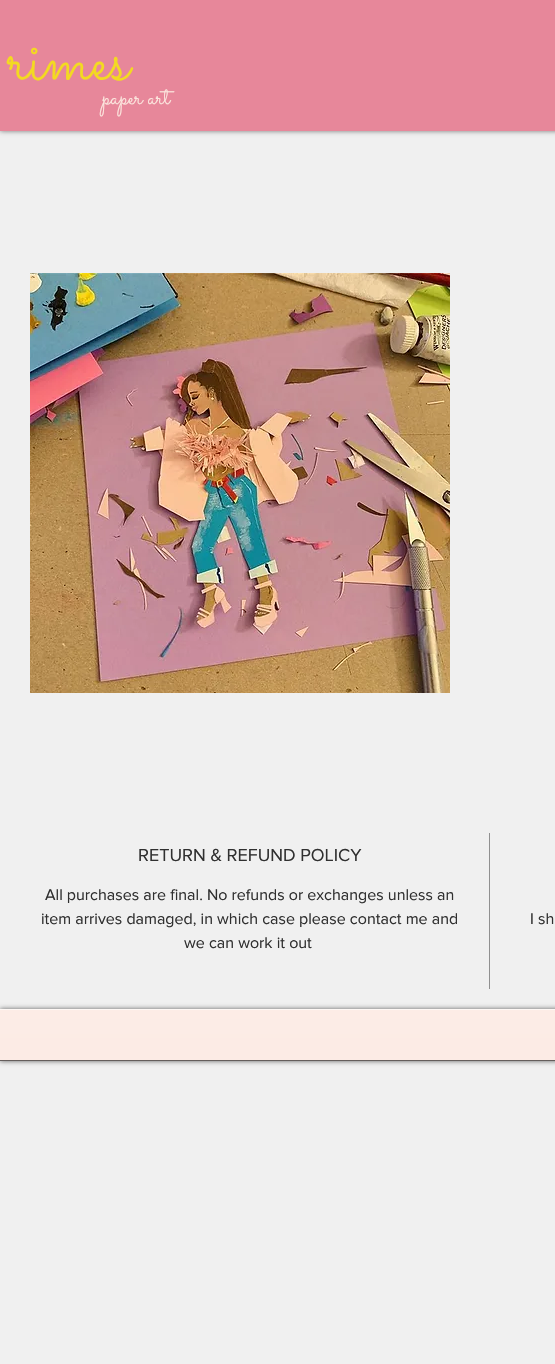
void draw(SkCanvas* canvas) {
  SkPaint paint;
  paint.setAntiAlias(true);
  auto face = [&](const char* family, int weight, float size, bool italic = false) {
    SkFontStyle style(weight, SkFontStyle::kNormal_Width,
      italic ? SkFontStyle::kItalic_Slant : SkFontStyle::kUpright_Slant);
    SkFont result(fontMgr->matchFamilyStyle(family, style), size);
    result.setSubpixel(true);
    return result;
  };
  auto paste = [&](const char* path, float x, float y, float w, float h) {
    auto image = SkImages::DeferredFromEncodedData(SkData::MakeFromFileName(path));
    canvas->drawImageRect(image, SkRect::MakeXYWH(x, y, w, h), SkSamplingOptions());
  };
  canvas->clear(0xfff0f0f0);
  paint.setColor(0x80000000);
  paint.setMaskFilter(SkMaskFilter::MakeBlur(kNormal_SkBlurStyle, 2.5f));
  canvas->drawRect(SkRect::MakeXYWH(0, 0, 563, 131), paint);
  paint.setMaskFilter(nullptr);
  paint.setColor(0xffe7879a);
  canvas->drawRect(SkRect::MakeXYWH(0, 0, 555, 131), paint);
  paste("img/1.png", 30, 273, 420, 420);
  paint.setColor(0xff909090);
  canvas->drawRect(SkRect::MakeXYWH(489, 833, 1, 156), paint);
  paint.setColor(0x99000000);
  paint.setMaskFilter(SkMaskFilter::MakeBlur(kNormal_SkBlurStyle, 2.5f));
  canvas->drawRect(SkRect::MakeXYWH(0, 1009, 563, 52), paint);
  paint.setMaskFilter(nullptr);
  paint.setColor(0xfffce6de);
  canvas->drawRect(SkRect::MakeXYWH(0, 1010, 555, 50), paint);
  paste("img/2.png", 0, 1010, 555, 50);
  paint.setColor(0xff655e5c);
  canvas->drawRect(SkRect::MakeXYWH(0, 1060, 555, 1), paint);
  paint.setColor(0xfffef8f5);
  canvas->drawRect(SkRect::MakeXYWH(0, 1009, 555, 1), paint);
  auto f0 = face("Sacramento", 400, 73);
  paint.setColor(0xfff3d922);
  canvas->drawString("rimes", 8, 79, f0, paint);
  auto f1 = face("Sacramento", 400, 25);
  paint.setColor(0xfffce6de);
  canvas->drawString("paper art", 102, 104, f1, paint);
  auto f2 = face("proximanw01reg", 400, 18);
  paint.setColor(0xff303030);
  canvas->drawString("RETURN & REFUND POLICY", 138, 861, f2, paint);
  auto f3 = face("proximanw01reg", 400, 16);
  {
    const struct { const char* s; float x, y; } items[] = {
      {"All purchases are final. No refunds or exchanges unless an", 45, 900},
      {"item arrives damaged, in which case please contact me and", 41, 924},
      {"we can work it out", 184, 948},
      {"I sh", 530, 924},
    };
    for (auto [s, x, y] : items) {
      canvas->drawString(s, x, y, f3, paint);
    }
  }
}
